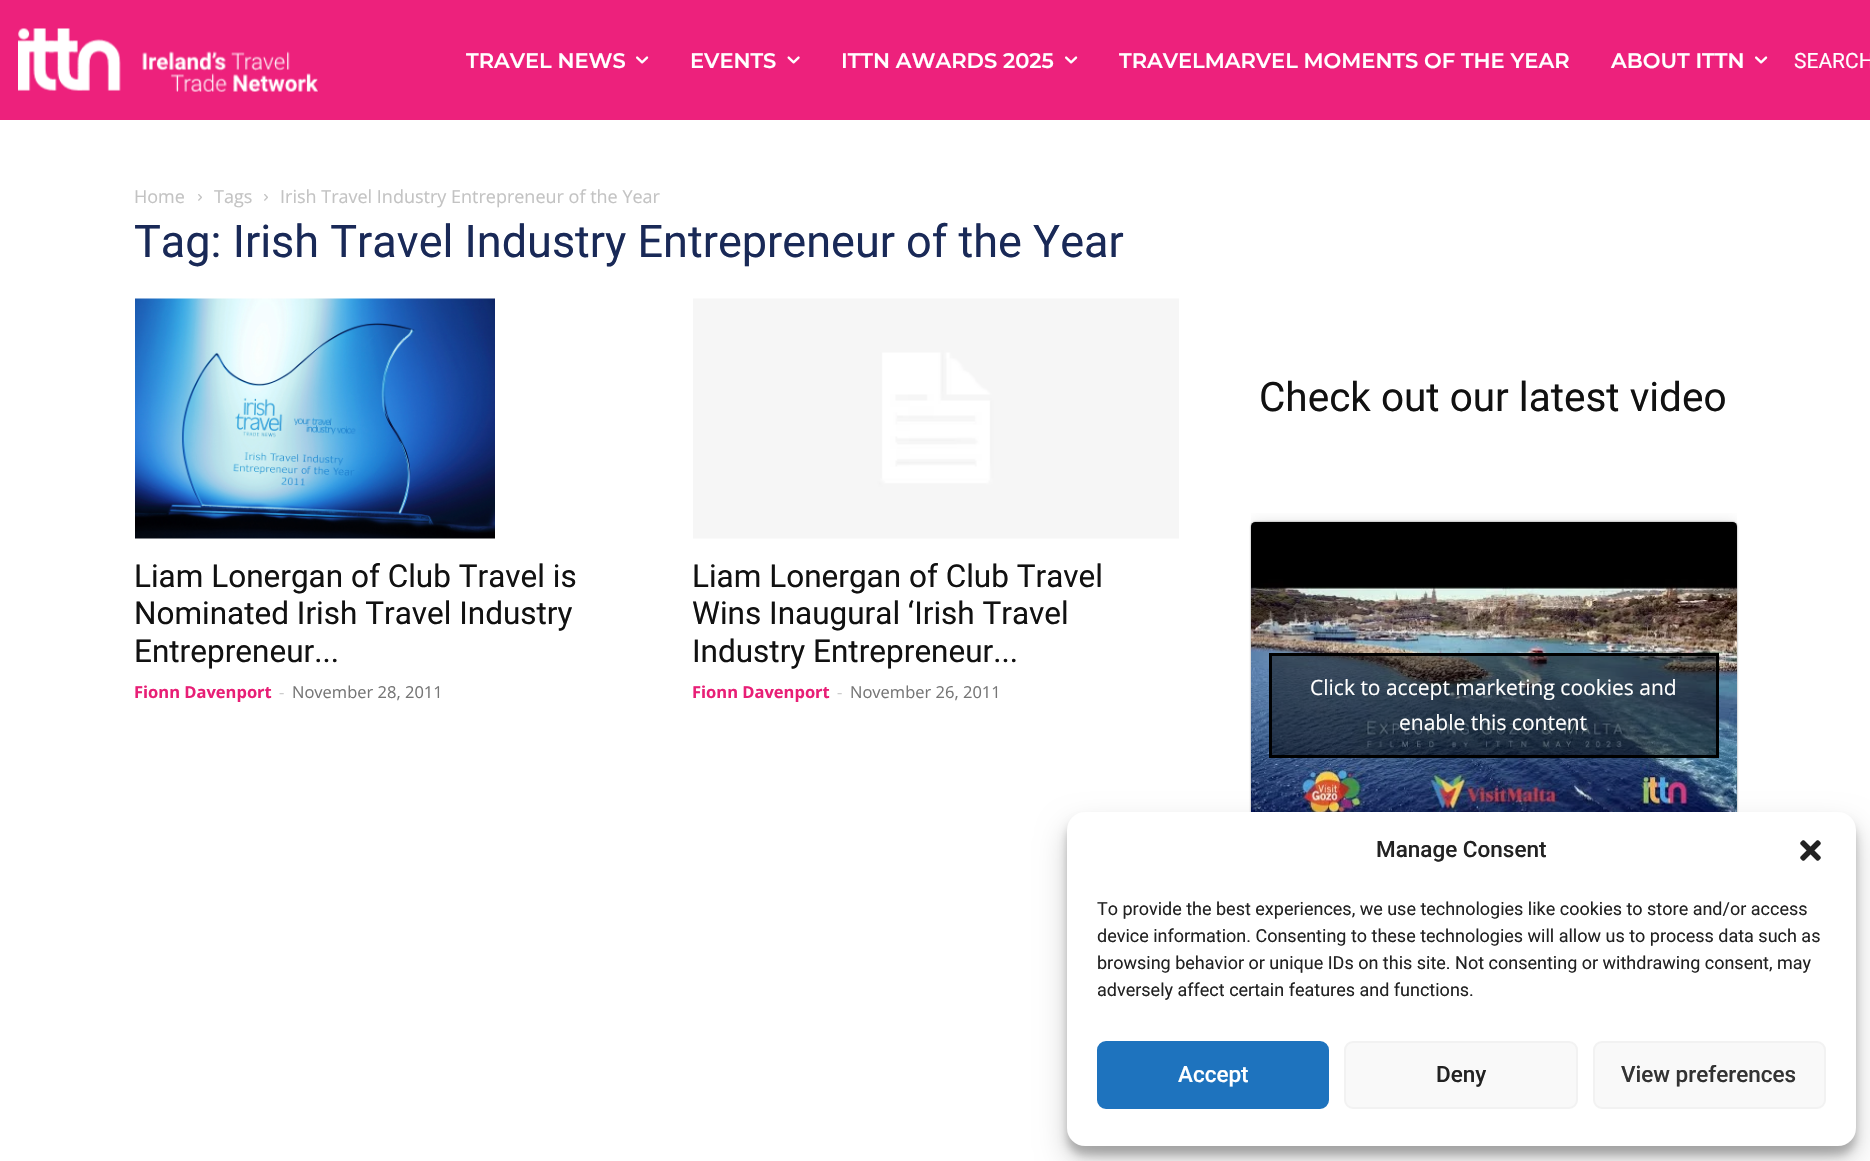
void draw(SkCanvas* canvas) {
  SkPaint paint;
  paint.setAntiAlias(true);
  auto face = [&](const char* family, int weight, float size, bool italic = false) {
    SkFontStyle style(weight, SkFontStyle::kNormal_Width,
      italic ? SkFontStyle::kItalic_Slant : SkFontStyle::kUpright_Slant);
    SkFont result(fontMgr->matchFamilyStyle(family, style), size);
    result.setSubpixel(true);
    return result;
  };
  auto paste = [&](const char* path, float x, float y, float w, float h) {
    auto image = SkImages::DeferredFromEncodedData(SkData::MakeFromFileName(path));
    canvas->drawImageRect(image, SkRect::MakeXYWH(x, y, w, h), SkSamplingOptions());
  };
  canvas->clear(0xffffffff);
  paint.setColor(0xffed217c);
  canvas->drawRect(SkRect::MakeXYWH(0, 0, 1870, 120), paint);
  paste("img/1.png", 18, 28, 300, 64);
  paste("img/2.png", 636, 56, 13, 8);
  paste("img/3.png", 787, 56, 13, 8);
  paste("img/2.png", 1065, 56, 13, 8);
  paste("img/2.png", 1755, 56, 13, 8);
  paste("img/4.png", 198, 194, 4, 7);
  paste("img/4.png", 264, 194, 4, 7);
  paste("img/5.png", 135, 298, 360, 241);
  paste("img/6.png", 693, 298, 486, 241);
  canvas->save();
  canvas->clipRect(SkRect::MakeXYWH(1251, 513, 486, 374));
  paint.setColor(0x26000000);
  paint.setMaskFilter(SkMaskFilter::MakeBlur(kNormal_SkBlurStyle, 7.5f));
  canvas->drawRoundRect(SkRect::MakeXYWH(1251, 524, 486, 364), 5, 5, paint);
  paint.setMaskFilter(nullptr);
  canvas->restore();
  paint.setColor(0x80000000);
  paint.setMaskFilter(SkMaskFilter::MakeBlur(kNormal_SkBlurStyle, 1));
  canvas->drawRoundRect(SkRect::MakeXYWH(1251, 522, 486, 365), 5, 5, paint);
  paint.setMaskFilter(nullptr);
  paste("img/7.png", 1251, 522, 486, 290);
  canvas->drawRect(SkRect::MakeXYWH(1270.5f, 654.5f, 447, 102), paint);
  paint.setStroke(true);
  paint.setStrokeWidth(3);
  paint.setColor(0xff000000);
  canvas->drawRect(SkRect::MakeXYWH(1270.5f, 654.5f, 447, 102), paint);
  paint.setStroke(false);
  paint.setColor(0x3b000000);
  paint.setMaskFilter(SkMaskFilter::MakeBlur(kNormal_SkBlurStyle, 4.5f));
  canvas->drawRoundRect(SkRect::MakeXYWH(1067, 821, 789, 334), 18, 18, paint);
  paint.setMaskFilter(nullptr);
  paint.setColor(0x30000000);
  paint.setMaskFilter(SkMaskFilter::MakeBlur(kNormal_SkBlurStyle, 15));
  canvas->drawRoundRect(SkRect::MakeXYWH(1067, 827, 789, 334), 18, 18, paint);
  paint.setMaskFilter(nullptr);
  paint.setColor(0xffffffff);
  canvas->drawRoundRect(SkRect::MakeXYWH(1067, 812, 789, 334), 18, 18, paint);
  paste("img/8.png", 1800, 840, 21, 21);
  paint.setColor(0xff1e73be);
  canvas->drawRoundRect(SkRect::MakeXYWH(1098, 1042, 230, 66), 8, 8, paint);
  paint.setStroke(true);
  paint.setStrokeWidth(2);
  canvas->drawRoundRect(SkRect::MakeXYWH(1098, 1042, 230, 66), 8, 8, paint);
  paint.setStroke(false);
  paint.setColor(0xfff9f9f9);
  canvas->drawRoundRect(SkRect::MakeXYWH(1345, 1042, 232, 66), 8, 8, paint);
  paint.setStroke(true);
  paint.setColor(0xfff2f2f2);
  canvas->drawRoundRect(SkRect::MakeXYWH(1345, 1042, 232, 66), 8, 8, paint);
  paint.setStroke(false);
  paint.setColor(0xfff9f9f9);
  canvas->drawRoundRect(SkRect::MakeXYWH(1594, 1042, 231, 66), 8, 8, paint);
  paint.setStroke(true);
  paint.setColor(0xfff2f2f2);
  canvas->drawRoundRect(SkRect::MakeXYWH(1594, 1042, 231, 66), 8, 8, paint);
  auto f0 = face("Montserrat", 600, 21);
  paint.setStroke(false);
  paint.setColor(0xffffffff);
  {
    const struct { const char* s; float x, y; } items[] = {
      {"TRAVEL NEWS", 466, 68},
      {"EVENTS", 690, 68},
      {"ITTN AWARDS 2025", 841, 68},
      {"TRAVELMARVEL MOMENTS OF THE YEAR", 1119, 68},
      {"ABOUT ITTN", 1611, 68},
    };
    for (auto [s, x, y] : items) {
      canvas->drawString(s, x, y, f0, paint);
    }
  }
  auto f1 = face("Roboto", 400, 21);
  canvas->drawString("SEARCH", 1794, 68, f1, paint);
  auto f2 = face("Open Sans", 400, 18);
  paint.setColor(0xffc3c3c3);
  {
    const struct { const char* s; float x, y; } items[] = {
      {"Home", 134, 203},
      {"Tags", 214, 203},
      {"Irish Travel Industry Entrepreneur of the Year", 280, 203},
    };
    for (auto [s, x, y] : items) {
      canvas->drawString(s, x, y, f2, paint);
    }
  }
  auto f3 = face("Roboto", 400, 45);
  paint.setColor(0xff192957);
  canvas->drawString("Tag: Irish Travel Industry Entrepreneur of the Year", 134, 257, f3, paint);
  auto f4 = face("Roboto", 400, 31.5f);
  paint.setColor(0xff111111);
  {
    const struct { const char* s; float x, y; } items[] = {
      {"Liam Lonergan of Club Travel is", 134, 587},
      {"Nominated Irish Travel Industry", 134, 624},
      {"Entrepreneur...", 134, 662},
    };
    for (auto [s, x, y] : items) {
      canvas->drawString(s, x, y, f4, paint);
    }
  }
  auto f5 = face("Open Sans", 700, 16.5f);
  paint.setColor(0xffe81f76);
  canvas->drawString("Fionn Davenport", 134, 698, f5, paint);
  auto f6 = face("Open Sans", 400, 16.5f);
  paint.setColor(0xffcccccc);
  canvas->drawString("-", 279, 698, f6, paint);
  paint.setColor(0xff767676);
  canvas->drawString("November 28, 2011", 292, 698, f6, paint);
  paint.setColor(0xff111111);
  {
    const struct { const char* s; float x, y; } items[] = {
      {"Liam Lonergan of Club Travel", 692, 587},
      {"Wins Inaugural ‘Irish Travel", 692, 624},
      {"Industry Entrepreneur...", 692, 662},
    };
    for (auto [s, x, y] : items) {
      canvas->drawString(s, x, y, f4, paint);
    }
  }
  paint.setColor(0xffe81f76);
  canvas->drawString("Fionn Davenport", 692, 698, f5, paint);
  paint.setColor(0xffcccccc);
  canvas->drawString("-", 837, 698, f6, paint);
  paint.setColor(0xff767676);
  canvas->drawString("November 26, 2011", 850, 698, f6, paint);
  auto f7 = face("Roboto", 400, 40.5f);
  paint.setColor(0xff111111);
  canvas->drawString("Check out our latest video", 1259, 411, f7, paint);
  auto f8 = face("Open Sans", 400, 21);
  paint.setColor(0xffffffff);
  canvas->drawString("Click to accept marketing cookies and", 1310, 695, f8, paint);
  canvas->drawString("enable this content", 1399, 730, f8, paint);
  auto f9 = face("Roboto", 500, 22.5f);
  paint.setColor(0xff222222);
  canvas->drawString("Manage Consent", 1376, 857, f9, paint);
  auto f10 = face("Roboto", 400, 18);
  {
    const struct { const char* s; float x, y; } items[] = {
      {"To provide the best experiences, we use technologies like cookies to store and/or access", 1097, 915},
      {"device information. Consenting to these technologies will allow us to process data such as", 1097, 942},
      {"browsing behavior or unique IDs on this site. Not consenting or withdrawing consent, may", 1097, 969},
      {"adversely affect certain features and functions.", 1097, 996},
    };
    for (auto [s, x, y] : items) {
      canvas->drawString(s, x, y, f10, paint);
    }
  }
  paint.setColor(0xffffffff);
  canvas->drawString("Accept", 1178, 1082, f9, paint);
  paint.setColor(0xff222222);
  canvas->drawString("Deny", 1436, 1082, f9, paint);
  paint.setColor(0xff333333);
  canvas->drawString("View preferences", 1621, 1082, f9, paint);
}
